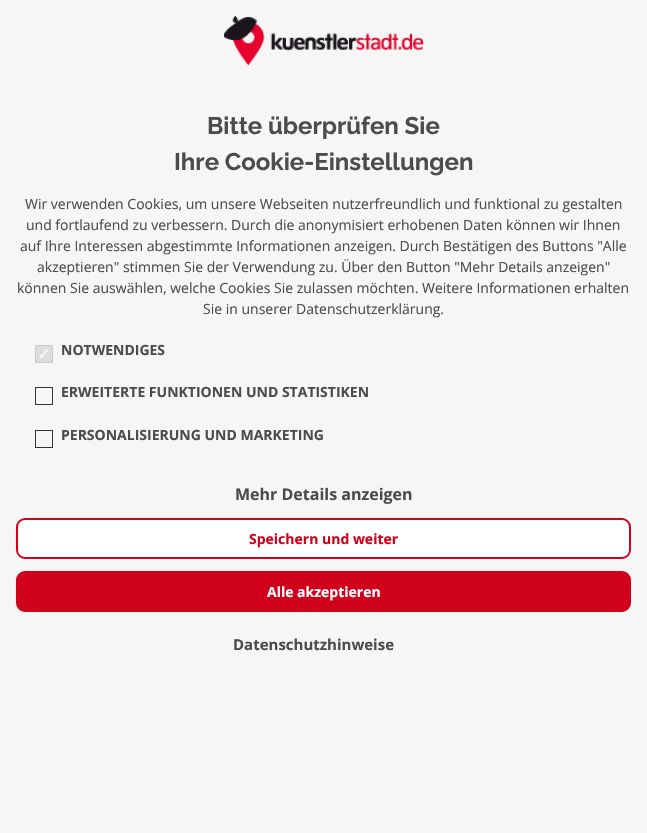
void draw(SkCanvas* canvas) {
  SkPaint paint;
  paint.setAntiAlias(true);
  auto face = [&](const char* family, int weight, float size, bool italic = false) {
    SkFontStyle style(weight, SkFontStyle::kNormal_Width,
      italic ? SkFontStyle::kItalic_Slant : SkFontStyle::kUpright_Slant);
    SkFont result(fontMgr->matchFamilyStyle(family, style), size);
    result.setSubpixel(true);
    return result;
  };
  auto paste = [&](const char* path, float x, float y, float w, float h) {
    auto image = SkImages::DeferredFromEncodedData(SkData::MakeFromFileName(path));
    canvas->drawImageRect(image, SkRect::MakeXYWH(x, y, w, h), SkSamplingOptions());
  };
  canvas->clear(0xfff6f6f6);
  paste("img/1.png", 224, 16, 200, 49);
  paint.setColor(0xffdddddd);
  canvas->drawRect(SkRect::MakeXYWH(35.5f, 345.5f, 17, 17), paint);
  paint.setStroke(true);
  paint.setStrokeWidth(1);
  paint.setColor(0xffcccccc);
  canvas->drawRect(SkRect::MakeXYWH(35.5f, 345.5f, 17, 17), paint);
  paint.setColor(0xff333333);
  canvas->drawRect(SkRect::MakeXYWH(35.5f, 387.5f, 17, 17), paint);
  canvas->drawRect(SkRect::MakeXYWH(35.5f, 430.5f, 17, 17), paint);
  paint.setStroke(false);
  paint.setColor(0xffffffff);
  canvas->drawRoundRect(SkRect::MakeXYWH(17, 519, 613, 39), 8, 8, paint);
  paint.setStroke(true);
  paint.setStrokeWidth(2);
  paint.setColor(0xffd0021b);
  canvas->drawRoundRect(SkRect::MakeXYWH(17, 519, 613, 39), 8, 8, paint);
  paint.setStroke(false);
  canvas->drawRoundRect(SkRect::MakeXYWH(17, 572, 613, 39), 8, 8, paint);
  paint.setStroke(true);
  canvas->drawRoundRect(SkRect::MakeXYWH(17, 572, 613, 39), 8, 8, paint);
  auto f0 = face("Raleway", 700, 24);
  paint.setStroke(false);
  paint.setColor(0xff4c4c4c);
  canvas->drawString("Bitte überprüfen Sie", 207, 134, f0, paint);
  canvas->drawString("Ihre Cookie-Einstellungen", 174, 170, f0, paint);
  auto f1 = face("Open Sans", 400, 14);
  {
    const struct { const char* s; float x, y; } items[] = {
      {"Wir verwenden Cookies, um unsere Webseiten nutzerfreundlich und funktional zu gestalten", 25, 209},
      {"und fortlaufend zu verbessern. Durch die anonymisiert erhobenen Daten können wir Ihnen", 26, 230},
      {"auf Ihre Interessen abgestimmte Informationen anzeigen. Durch Bestätigen des Buttons \"Alle", 20, 251},
      {"akzeptieren\" stimmen Sie der Verwendung zu. Über den Button \"Mehr Details anzeigen\"", 37, 272},
      {"können Sie auswählen, welche Cookies Sie zulassen möchten. Weitere Informationen erhalten", 17, 293},
      {"Sie in unserer Datenschutzerklärung.", 203, 314},
    };
    for (auto [s, x, y] : items) {
      canvas->drawString(s, x, y, f1, paint);
    }
  }
  auto f2 = face("DejaVu Sans", 700, 16);
  paint.setColor(0xfff6f6f6);
  canvas->drawString("✓", 37, 360, f2, paint);
  auto f3 = face("Open Sans", 700, 14);
  paint.setColor(0xff4c4c4c);
  {
    const struct { const char* s; float x, y; } items[] = {
      {"NOTWENDIGES", 61, 355},
      {"ERWEITERTE FUNKTIONEN UND STATISTIKEN", 61, 397},
      {"PERSONALISIERUNG UND MARKETING", 61, 440},
    };
    for (auto [s, x, y] : items) {
      canvas->drawString(s, x, y, f3, paint);
    }
  }
  auto f4 = face("Open Sans", 700, 16);
  canvas->drawString("Mehr Details anzeigen", 235, 500, f4, paint);
  paint.setColor(0xffd0021b);
  canvas->drawString("Speichern und weiter", 249, 544, f3, paint);
  paint.setColor(0xffffffff);
  canvas->drawString("Alle akzeptieren", 267, 597, f3, paint);
  auto f5 = face("Open Sans", 700, 15);
  paint.setColor(0xff4c4c4c);
  canvas->drawString("Datenschutzhinweise", 233, 650, f5, paint);
}
